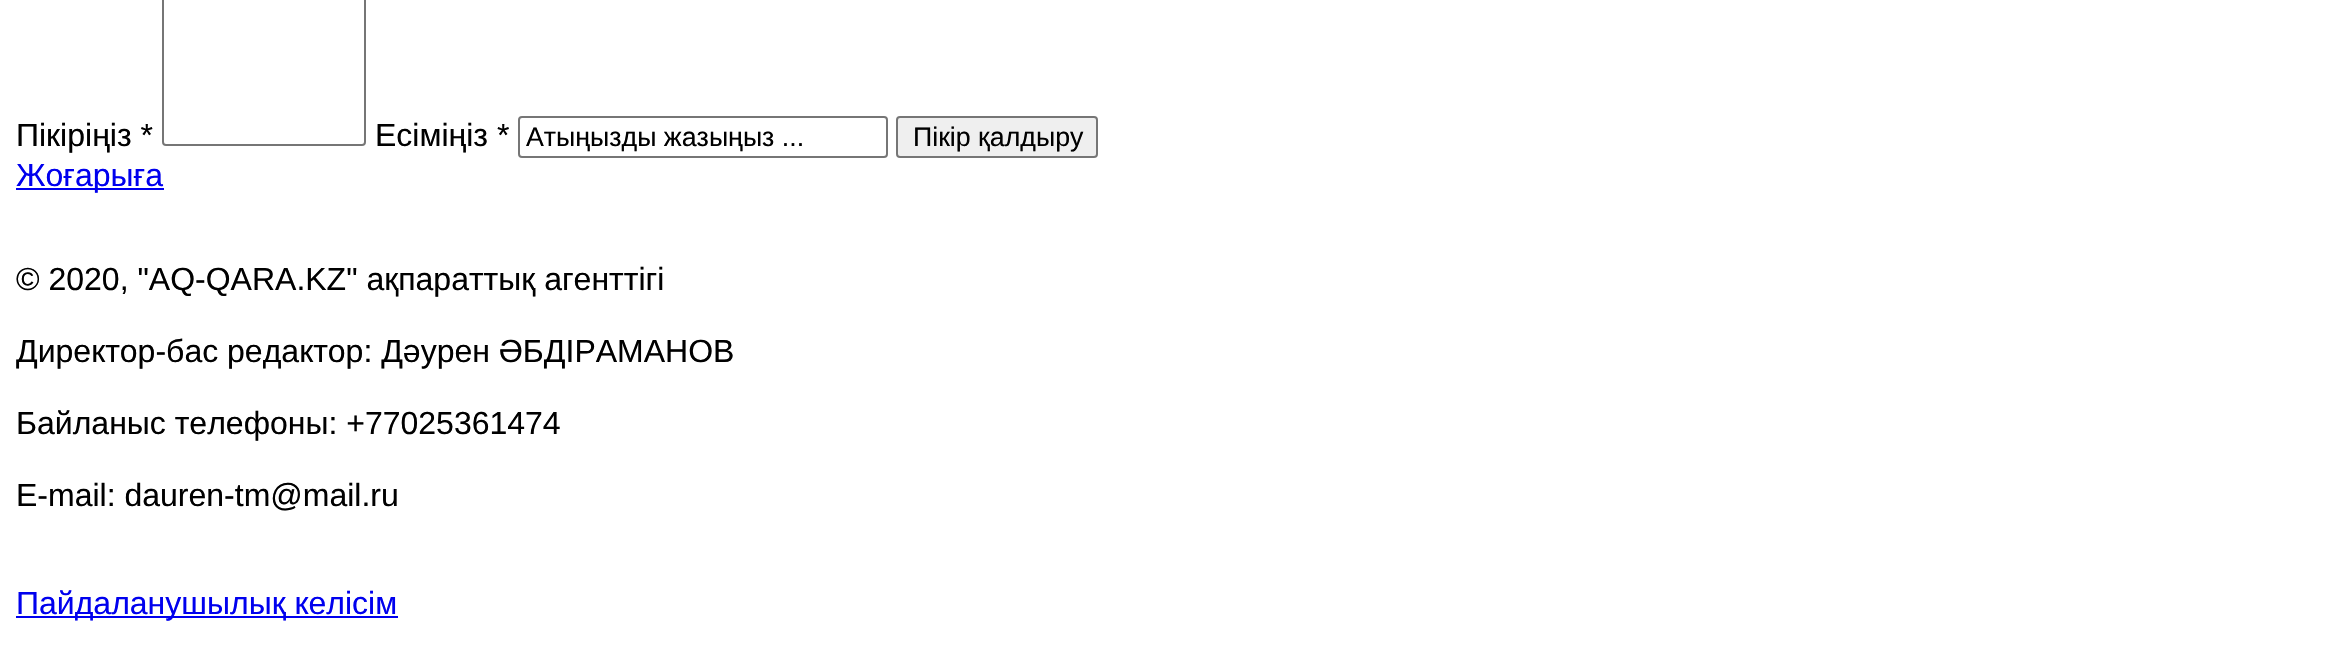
void draw(SkCanvas* canvas) {
  SkPaint paint;
  paint.setAntiAlias(true);
  auto face = [&](const char* family, int weight, float size, bool italic = false) {
    SkFontStyle style(weight, SkFontStyle::kNormal_Width,
      italic ? SkFontStyle::kItalic_Slant : SkFontStyle::kUpright_Slant);
    SkFont result(fontMgr->matchFamilyStyle(family, style), size);
    result.setSubpixel(true);
    return result;
  };
  canvas->clear(0xffffffff);
  paint.setStroke(true);
  paint.setStrokeWidth(2);
  paint.setColor(0xff767676);
  canvas->drawRoundRect(SkRect::MakeXYWH(163, -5, 202, 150), 3, 3, paint);
  canvas->drawRoundRect(SkRect::MakeXYWH(519, 117, 368, 40), 3, 3, paint);
  paint.setStroke(false);
  paint.setColor(0xffefefef);
  canvas->drawRoundRect(SkRect::MakeXYWH(897, 117, 200, 40), 3, 3, paint);
  paint.setStroke(true);
  paint.setColor(0xff767676);
  canvas->drawRoundRect(SkRect::MakeXYWH(897, 117, 200, 40), 3, 3, paint);
  paint.setStroke(false);
  paint.setColor(0xff0000ee);
  canvas->drawRect(SkRect::MakeXYWH(16, 188, 148, 2), paint);
  canvas->drawRect(SkRect::MakeXYWH(16, 616, 382, 2), paint);
  auto f0 = face("Liberation Sans", 400, 32);
  paint.setColor(0xff000000);
  canvas->drawString("Пікіріңіз *", 16, 146, f0, paint);
  canvas->drawString("Есіміңіз *", 375, 146, f0, paint);
  auto f1 = face("Liberation Sans", 400, 26.75f);
  canvas->drawString("Атыңызды жазыңыз ...", 526, 146, f1, paint);
  canvas->drawString("Пікір қалдыру", 913, 146, f1, paint);
  paint.setColor(0xff0000ee);
  canvas->drawString("Жоғарыға", 16, 186, f0, paint);
  paint.setColor(0xff000000);
  {
    const struct { const char* s; float x, y; } items[] = {
      {"© 2020, \"AQ-QARA.KZ\" ақпараттық агенттігі", 16, 290},
      {"Директор-бас редактор: Дәурен ӘБДІРАМАНОВ", 16, 362},
      {"Байланыс телефоны: +77025361474", 16, 434},
      {"E-mail: dauren-tm@mail.ru", 16, 506},
    };
    for (auto [s, x, y] : items) {
      canvas->drawString(s, x, y, f0, paint);
    }
  }
  paint.setColor(0xff0000ee);
  canvas->drawString("Пайдаланушылық келісім", 16, 614, f0, paint);
}
